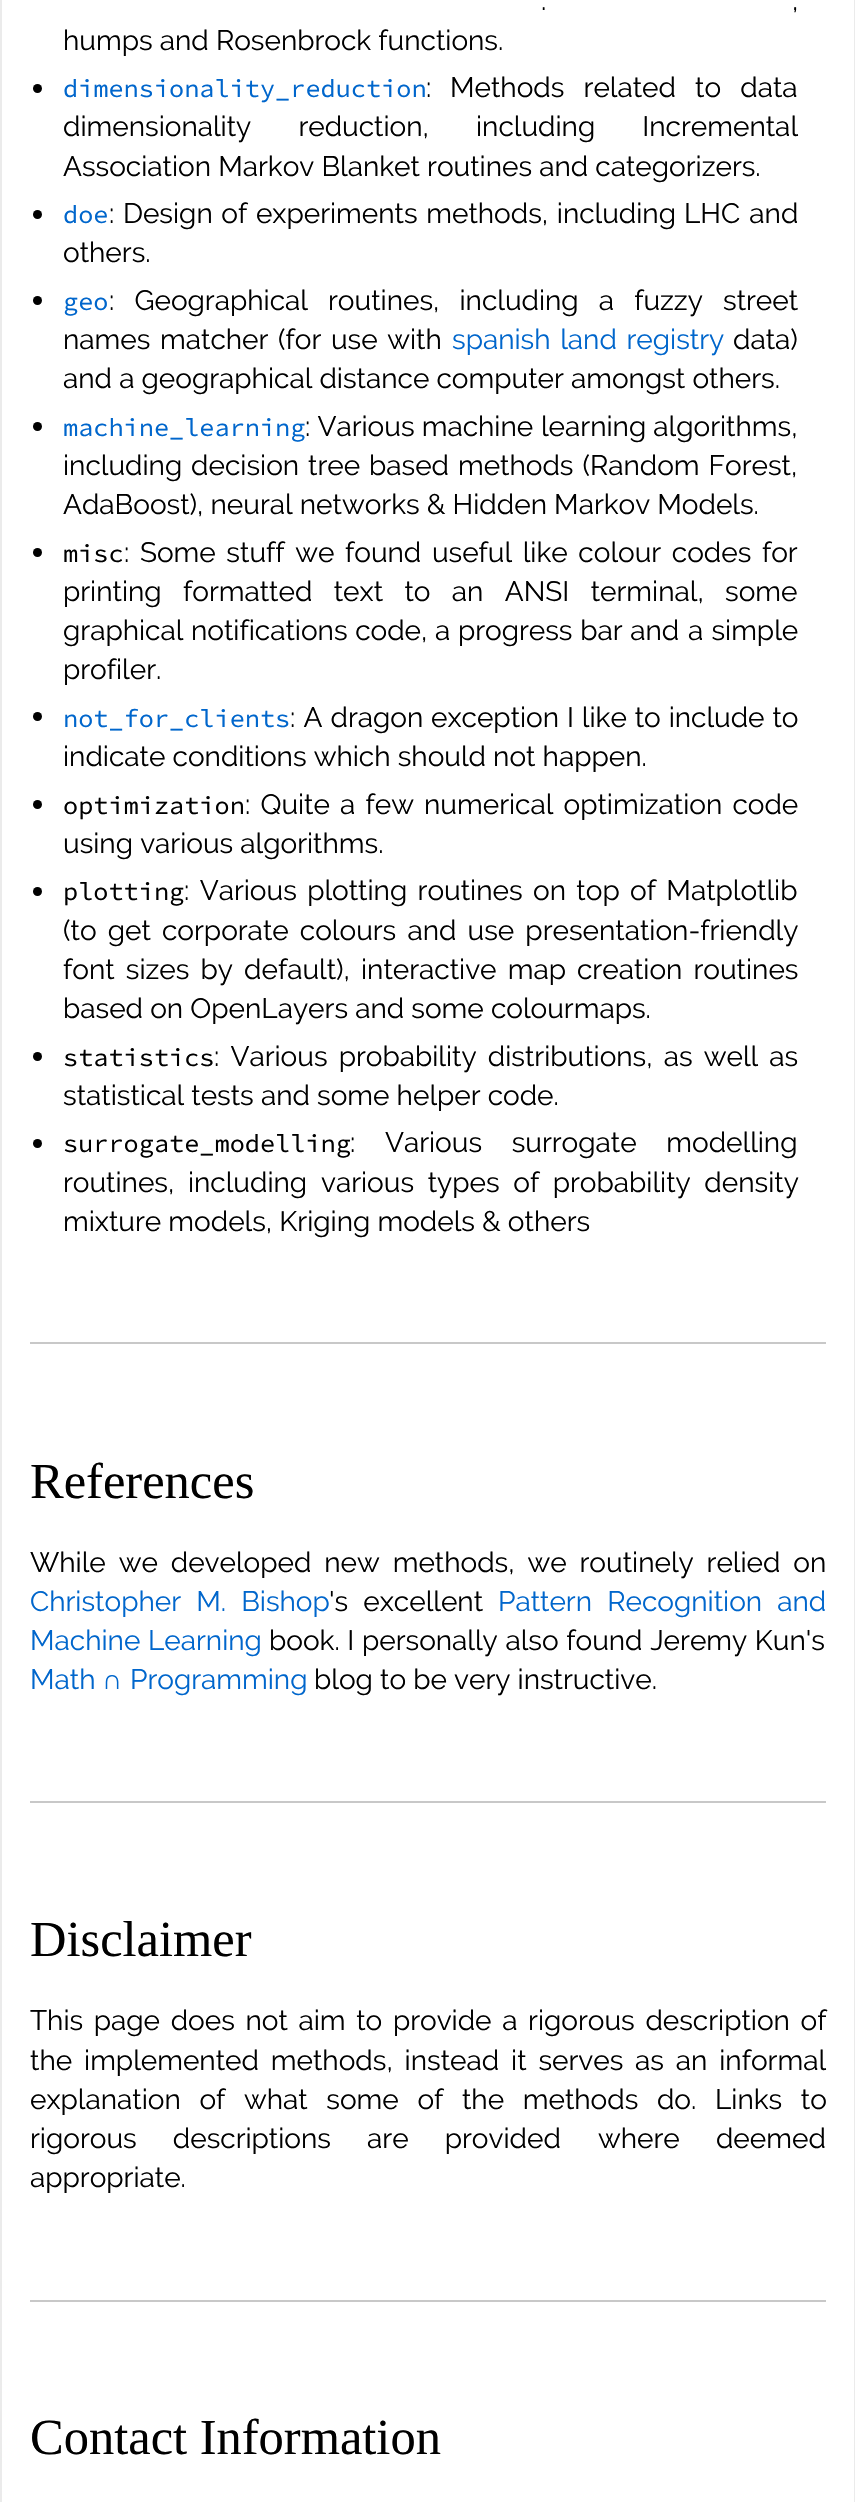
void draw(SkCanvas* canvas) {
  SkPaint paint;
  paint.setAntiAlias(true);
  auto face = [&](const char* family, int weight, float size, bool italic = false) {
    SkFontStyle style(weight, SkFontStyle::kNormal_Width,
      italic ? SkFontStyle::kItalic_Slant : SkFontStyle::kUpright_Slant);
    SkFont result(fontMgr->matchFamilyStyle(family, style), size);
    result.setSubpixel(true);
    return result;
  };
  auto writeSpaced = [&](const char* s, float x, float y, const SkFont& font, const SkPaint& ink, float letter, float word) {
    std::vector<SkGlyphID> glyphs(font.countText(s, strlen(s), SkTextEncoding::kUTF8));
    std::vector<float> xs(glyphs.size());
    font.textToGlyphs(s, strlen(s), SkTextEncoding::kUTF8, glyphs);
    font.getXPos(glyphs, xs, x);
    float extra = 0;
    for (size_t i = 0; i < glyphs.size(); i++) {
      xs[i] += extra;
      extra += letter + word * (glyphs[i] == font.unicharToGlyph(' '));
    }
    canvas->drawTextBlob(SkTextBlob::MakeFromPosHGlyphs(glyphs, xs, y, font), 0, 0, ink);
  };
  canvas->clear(0xffffffff);
  paint.setColor(0xffebebeb);
  canvas->drawRect(SkRect::MakeXYWH(854, 0, 1, 2502), paint);
  canvas->drawRect(SkRect::MakeXYWH(0, 0, 2, 2502), paint);
  paint.setColor(0xff000000);
  canvas->drawCircle(37.5f, 88.5f, 4.5f, paint);
  canvas->drawCircle(37.5f, 214.5f, 4.5f, paint);
  canvas->drawCircle(37.5f, 300.5f, 4.5f, paint);
  canvas->drawCircle(37.5f, 426.5f, 4.5f, paint);
  canvas->drawCircle(37.5f, 552.5f, 4.5f, paint);
  canvas->drawCircle(37.5f, 716.5f, 4.5f, paint);
  canvas->drawCircle(37.5f, 804.5f, 4.5f, paint);
  canvas->drawCircle(37.5f, 891.5f, 4.5f, paint);
  canvas->drawCircle(37.5f, 1056.5f, 4.5f, paint);
  canvas->drawCircle(37.5f, 1143.5f, 4.5f, paint);
  {
    const struct { float x, y, w, h; SkColor color; } items[] = {
      {30, 1342, 796, 2, 0xffc8c8c8},
      {30, 1801, 796, 2, 0xffc8c8c8},
      {30, 2300, 796, 2, 0xffc8c8c8},
    };
    for (auto [x, y, w, h, color] : items) {
      paint.setColor(color);
      canvas->drawRect(SkRect::MakeXYWH(x, y, w, h), paint);
    }
  }
  auto f0 = face("Raleway", 400, 28);
  paint.setColor(0xff000000);
  writeSpaced(".", 541, 10, f0, paint, 0, 19);
  writeSpaced(",", 792, 10, f0, paint, 0, 19);
  canvas->drawString("humps and Rosenbrock functions.", 63, 50, f0, paint);
  auto f1 = face("Source Code Pro", 400, 25.25f);
  paint.setColor(0xff0066cc);
  canvas->drawString("dimensionality_reduction", 63, 97, f1, paint);
  paint.setColor(0xff000000);
  canvas->drawString(":", 426, 97, f0, paint);
  writeSpaced("Methods related to data", 450, 97, f0, paint, 0, 12);
  writeSpaced("dimensionality reduction, including Incremental", 63, 136, f0, paint, 0, 40);
  canvas->drawString("Association Markov Blanket routines and categorizers.", 63, 176, f0, paint);
  paint.setColor(0xff0066cc);
  canvas->drawString("doe", 63, 223, f1, paint);
  paint.setColor(0xff000000);
  writeSpaced(": Design of experiments methods, including", 109, 223, f0, paint, 0, 1.5f);
  writeSpaced("LHC and", 684, 223, f0, paint, 0, 2);
  canvas->drawString("others.", 63, 262, f0, paint);
  paint.setColor(0xff0066cc);
  canvas->drawString("geo", 63, 310, f1, paint);
  paint.setColor(0xff000000);
  writeSpaced(": Geographical routines, including a fuzzy", 109, 310, f0, paint, 0, 13);
  canvas->drawString("street", 723, 310, f0, paint);
  writeSpaced("names matcher (for use with", 63, 349, f0, paint, 0, 2.5f);
  paint.setColor(0xff0066cc);
  writeSpaced("spanish land registry", 452, 349, f0, paint, 0, 2.5f);
  paint.setColor(0xff000000);
  canvas->drawString("data)", 733, 349, f0, paint);
  canvas->drawString("and a geographical distance computer amongst others.", 63, 388, f0, paint);
  paint.setColor(0xff0066cc);
  canvas->drawString("machine_learning", 63, 436, f1, paint);
  paint.setColor(0xff000000);
  canvas->drawString(": Various machine", 305, 436, f0, paint);
  canvas->drawString("learning algorithms,", 541, 436, f0, paint);
  writeSpaced("including decision tree based methods (Random Forest,", 63, 475, f0, paint, 0, 1.75f);
  canvas->drawString("AdaBoost), neural networks & Hidden Markov Models.", 63, 514, f0, paint);
  canvas->drawString("misc", 63, 562, f1, paint);
  writeSpaced(": Some stuff we found useful like colour codes for", 124, 562, f0, paint, 0, 3.5f);
  canvas->drawString("printing", 63, 601, f0, paint);
  writeSpaced("formatted text to an ANSI terminal, some", 183, 601, f0, paint, 0, 14.25f);
  writeSpaced("graphical notifications code, a progress bar and", 63, 640, f0, paint, 0, 0.5f);
  writeSpaced("a simple", 688, 640, f0, paint, 0, 1);
  canvas->drawString("profiler.", 63, 679, f0, paint);
  paint.setColor(0xff0066cc);
  canvas->drawString("not_for_clients", 63, 727, f1, paint);
  paint.setColor(0xff000000);
  writeSpaced(": A dragon", 290, 727, f0, paint, 0, 1);
  writeSpaced("exception I like to include to", 431, 727, f0, paint, 0, 0.75f);
  canvas->drawString("indicate conditions which should not happen.", 63, 766, f0, paint);
  canvas->drawString("optimization", 63, 814, f1, paint);
  writeSpaced(": Quite a few numerical optimization code", 245, 814, f0, paint, 0, 3);
  canvas->drawString("using various algorithms.", 63, 853, f0, paint);
  canvas->drawString("plotting", 63, 900, f1, paint);
  writeSpaced(": Various plotting routines on top of Matplotlib", 184, 900, f0, paint, 0, 3.25f);
  {
    const struct { const char* s; float x, y; } items[] = {
      {"(to get", 63, 940},
      {"corporate colours and use presentation-friendly", 162, 940},
      {"font sizes by default), interactive map", 63, 979},
      {"creation routines", 577, 979},
    };
    for (auto [s, x, y] : items) {
      writeSpaced(s, x, y, f0, paint, 0, 4);
    }
  }
  canvas->drawString("based on OpenLayers and some colourmaps.", 63, 1018, f0, paint);
  canvas->drawString("statistics", 63, 1066, f1, paint);
  writeSpaced(": Various probability distributions, as well as", 214, 1066, f0, paint, 0, 4);
  canvas->drawString("statistical tests and some helper code.", 63, 1105, f0, paint);
  canvas->drawString("surrogate_modelling", 63, 1152, f1, paint);
  writeSpaced(": Various surrogate modelling", 350, 1152, f0, paint, 0, 22.5f);
  writeSpaced("routines, including", 63, 1192, f0, paint, 0, 6.5f);
  writeSpaced("various types of probability density", 321, 1192, f0, paint, 0, 6.5f);
  canvas->drawString("mixture models, Kriging models & others", 63, 1231, f0, paint);
  auto f2 = face("Liberation Serif", 400, 50.5f);
  canvas->drawString("References", 30, 1498, f2, paint);
  writeSpaced("While we developed new methods, we routinely relied on", 30, 1572, f0, paint, 0, 5.75f);
  paint.setColor(0xff0066cc);
  writeSpaced("Christopher M. Bishop", 30, 1611, f0, paint, 0, 8);
  paint.setColor(0xff000000);
  writeSpaced("'s excellent", 329, 1611, f0, paint, 0, 8);
  paint.setColor(0xff0066cc);
  writeSpaced("Pattern Recognition and", 498, 1611, f0, paint, 0, 8);
  writeSpaced("Machine Learning", 30, 1650, f0, paint, 0, 0.5f);
  paint.setColor(0xff000000);
  writeSpaced("book. I personally also found Jeremy Kun's", 269, 1650, f0, paint, 0, 0.5f);
  paint.setColor(0xff0066cc);
  canvas->drawString("Math", 30, 1689, f0, paint);
  auto f3 = face("Liberation Sans", 400, 28);
  canvas->drawString("∩", 102, 1689, f3, paint);
  canvas->drawString("Programming", 130, 1689, f0, paint);
  paint.setColor(0xff000000);
  canvas->drawString("blog to be very instructive.", 314, 1689, f0, paint);
  canvas->drawString("Disclaimer", 30, 1956, f2, paint);
  writeSpaced("This page does not aim to provide a rigorous description of", 30, 2030, f0, paint, 0, 3.5f);
  writeSpaced("the implemented methods, instead it serves", 30, 2070, f0, paint, 0, 4.75f);
  writeSpaced("as an informal", 635, 2070, f0, paint, 0, 4.75f);
  writeSpaced("explanation of what some of the methods do. Links to", 30, 2109, f0, paint, 0, 11.5f);
  writeSpaced("rigorous descriptions are provided", 30, 2148, f0, paint, 0, 29);
  writeSpaced("where deemed", 598, 2148, f0, paint, 0, 29);
  canvas->drawString("appropriate.", 30, 2187, f0, paint);
  canvas->drawString("Contact Information", 30, 2454, f2, paint);
}
